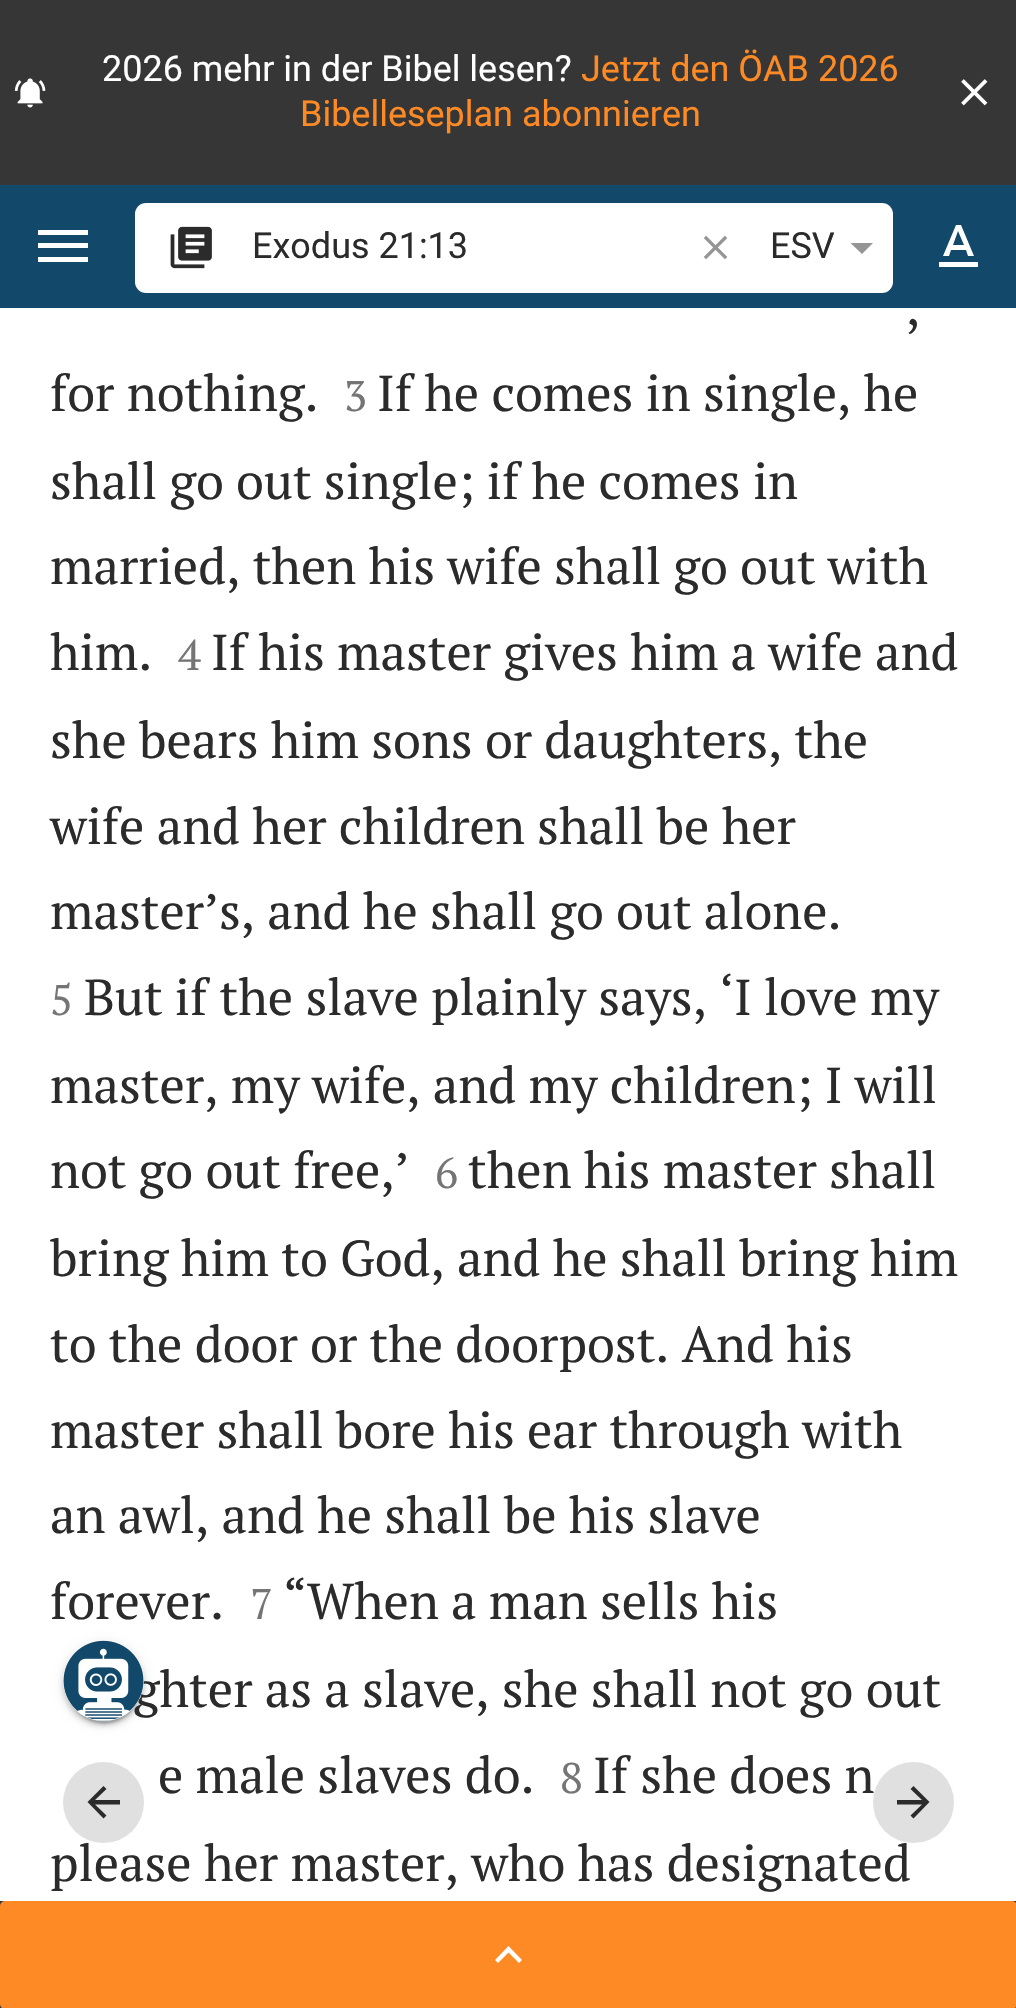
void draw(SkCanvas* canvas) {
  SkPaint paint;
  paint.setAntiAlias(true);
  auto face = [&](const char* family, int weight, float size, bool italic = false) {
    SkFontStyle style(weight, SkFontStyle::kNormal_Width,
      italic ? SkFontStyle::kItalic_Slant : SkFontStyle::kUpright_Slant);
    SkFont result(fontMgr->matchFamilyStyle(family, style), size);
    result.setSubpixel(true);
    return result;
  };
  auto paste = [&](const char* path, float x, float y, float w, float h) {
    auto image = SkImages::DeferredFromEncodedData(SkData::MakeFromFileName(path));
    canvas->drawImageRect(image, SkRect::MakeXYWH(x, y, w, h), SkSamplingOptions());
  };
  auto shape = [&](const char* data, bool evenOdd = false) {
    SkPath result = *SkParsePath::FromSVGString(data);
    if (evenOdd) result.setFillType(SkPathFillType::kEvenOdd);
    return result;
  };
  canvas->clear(0xffffffff);
  paint.setColor(0xff363636);
  canvas->drawRect(SkRect::MakeXYWH(0, 0, 1016, 185), paint);
  paste("img/1.png", 14, 78, 32, 30);
  paste("img/2.png", 961, 79, 27, 27);
  {
    const struct { float x, y, w, h; SkColor color; } items[] = {
      {0, 185, 1016, 123, 0xff12496a},
      {38, 230, 50, 5, 0xffffffff},
      {38, 243, 50, 5, 0xffffffff},
      {38, 257, 50, 5, 0xffffffff},
    };
    for (auto [x, y, w, h, color] : items) {
      paint.setColor(color);
      canvas->drawRect(SkRect::MakeXYWH(x, y, w, h), paint);
    }
  }
  canvas->drawRoundRect(SkRect::MakeXYWH(135, 203, 758, 90), 11, 11, paint);
  paste("img/3.png", 170, 226, 42, 43);
  paste("img/4.png", 703, 235, 25, 25);
  paint.setColor(0xff959595);
  canvas->drawPath(shape("M850.5 243L862 254L873 243Z"), paint);
  paint.setColor(0xffffffff);
  canvas->drawPath(shape("M939 262V267H978V262ZM951 250H966L968 256H974L961 225H956L943 256H949ZM958 231L964 245H953Z"), paint);
  paint.setColor(0xffe0e0e0);
  canvas->drawCircle(103.5f, 1802.5f, 40.5f, paint);
  paint.setColor(0xff2b2b2b);
  canvas->drawPath(shape("M120 1800V1804.5H95L106.5 1815.5L103.5 1818.5L87.5 1802L103.5 1786L106.5 1789L95 1800Z"), paint);
  paint.setColor(0xff363636);
  canvas->drawRect(SkRect::MakeXYWH(0, 1901, 1016, 107), paint);
  paint.setColor(0xfffd8a24);
  canvas->drawRoundRect(SkRect::MakeXYWH(0, 1901, 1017, 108), 5, 5, paint);
  paint.setColor(0xffffffff);
  canvas->drawPath(shape("M498 1963L508.5 1952.5L519 1963L522 1960L508.5 1946L495 1960Z"), paint);
  paint.setColor(0x1f000000);
  paint.setMaskFilter(SkMaskFilter::MakeBlur(kNormal_SkBlurStyle, 5.5f));
  canvas->drawRoundRect(SkRect::MakeXYWH(63, 1643, 81, 81), 40.5f, 40.5f, paint);
  paint.setMaskFilter(nullptr);
  paint.setColor(0x24000000);
  paint.setMaskFilter(SkMaskFilter::MakeBlur(kNormal_SkBlurStyle, 2));
  canvas->drawRoundRect(SkRect::MakeXYWH(63, 1645, 81, 81), 40.5f, 40.5f, paint);
  paint.setMaskFilter(nullptr);
  paint.setColor(0x33000000);
  paint.setMaskFilter(SkMaskFilter::MakeBlur(kNormal_SkBlurStyle, 1));
  canvas->drawRoundRect(SkRect::MakeXYWH(68, 1652, 72, 72), 36, 36, paint);
  paint.setMaskFilter(nullptr);
  auto f0 = face("Roboto", 400, 36);
  paint.setColor(0xffffffff);
  canvas->drawString("2026 mehr in der Bibel lesen?", 102, 81, f0, paint);
  paint.setColor(0xfffd8a24);
  canvas->drawString("Jetzt den ÖAB 2026", 581, 81, f0, paint);
  canvas->drawString("Bibelleseplan abonnieren", 300, 126, f0, paint);
  paint.setColor(0xff2b2b2b);
  canvas->drawString("Exodus 21:13", 252, 258, f0, paint);
  canvas->drawString("ESV", 770, 258, f0, paint);
  auto f1 = face("PT Serif", 400, 50.4f);
  canvas->drawString(",", 906, 325, f1, paint);
  canvas->drawString("for nothing.", 50, 411, f1, paint);
  auto f2 = face("PT Serif", 400, 43);
  paint.setColor(0xff757575);
  canvas->drawString("3", 344, 411, f2, paint);
  paint.setColor(0xff2b2b2b);
  {
    const struct { const char* s; float x, y; } items[] = {
      {"If he comes in single, he", 377, 411},
      {"shall go out single; if he comes in", 50, 499},
      {"married, then his wife shall go out with", 50, 584},
      {"him.", 50, 670},
    };
    for (auto [s, x, y] : items) {
      canvas->drawString(s, x, y, f1, paint);
    }
  }
  paint.setColor(0xff757575);
  canvas->drawString("4", 178, 670, f2, paint);
  paint.setColor(0xff2b2b2b);
  {
    const struct { const char* s; float x, y; } items[] = {
      {"If his master gives him a wife and", 211, 670},
      {"she bears him sons or daughters, the", 50, 758},
      {"wife and her children shall be her", 50, 844},
      {"master’s, and he shall go out alone.", 50, 929},
    };
    for (auto [s, x, y] : items) {
      canvas->drawString(s, x, y, f1, paint);
    }
  }
  paint.setColor(0xff757575);
  canvas->drawString("5", 50, 1015, f2, paint);
  paint.setColor(0xff2b2b2b);
  {
    const struct { const char* s; float x, y; } items[] = {
      {"But if the slave plainly says, ‘I love my", 84, 1015},
      {"master, my wife, and my children; I will", 50, 1103},
      {"not go out free,’", 50, 1188},
    };
    for (auto [s, x, y] : items) {
      canvas->drawString(s, x, y, f1, paint);
    }
  }
  paint.setColor(0xff757575);
  canvas->drawString("6", 435, 1188, f2, paint);
  paint.setColor(0xff2b2b2b);
  {
    const struct { const char* s; float x, y; } items[] = {
      {"then his master shall", 468, 1188},
      {"bring him to God, and he shall bring him", 50, 1276},
      {"to the door or the doorpost. And his", 50, 1362},
      {"master shall bore his ear through with", 50, 1448},
      {"an awl, and he shall be his slave", 50, 1533},
      {"forever.", 50, 1619},
    };
    for (auto [s, x, y] : items) {
      canvas->drawString(s, x, y, f1, paint);
    }
  }
  paint.setColor(0xff757575);
  canvas->drawString("7", 250, 1619, f2, paint);
  paint.setColor(0xff2b2b2b);
  {
    const struct { const char* s; float x, y; } items[] = {
      {"“When a man sells his", 283, 1619},
      {"ghter as a slave, she shall not go out", 133, 1707},
      {"e male slaves do.", 158, 1793},
    };
    for (auto [s, x, y] : items) {
      canvas->drawString(s, x, y, f1, paint);
    }
  }
  paint.setColor(0xff757575);
  canvas->drawString("8", 560, 1793, f2, paint);
  paint.setColor(0xff2b2b2b);
  canvas->drawString("If she does n", 593, 1793, f1, paint);
  canvas->drawString("please her master, who has designated", 50, 1881, f1, paint);
  paint.setColor(0xffe0e0e0);
  canvas->drawCircle(913.5f, 1802.5f, 40.5f, paint);
  paint.setColor(0xff2b2b2b);
  canvas->drawPath(shape("M897 1800V1804.5H922L910.5 1815.5L913.5 1818.5L929.5 1802L913.5 1786L910.5 1789L922 1800Z"), paint);
  paint.setColor(0xffffffff);
  canvas->drawCircle(103.5f, 1680.5f, 40.5f, paint);
  paste("img/5.png", 63, 1640, 81, 81);
}
